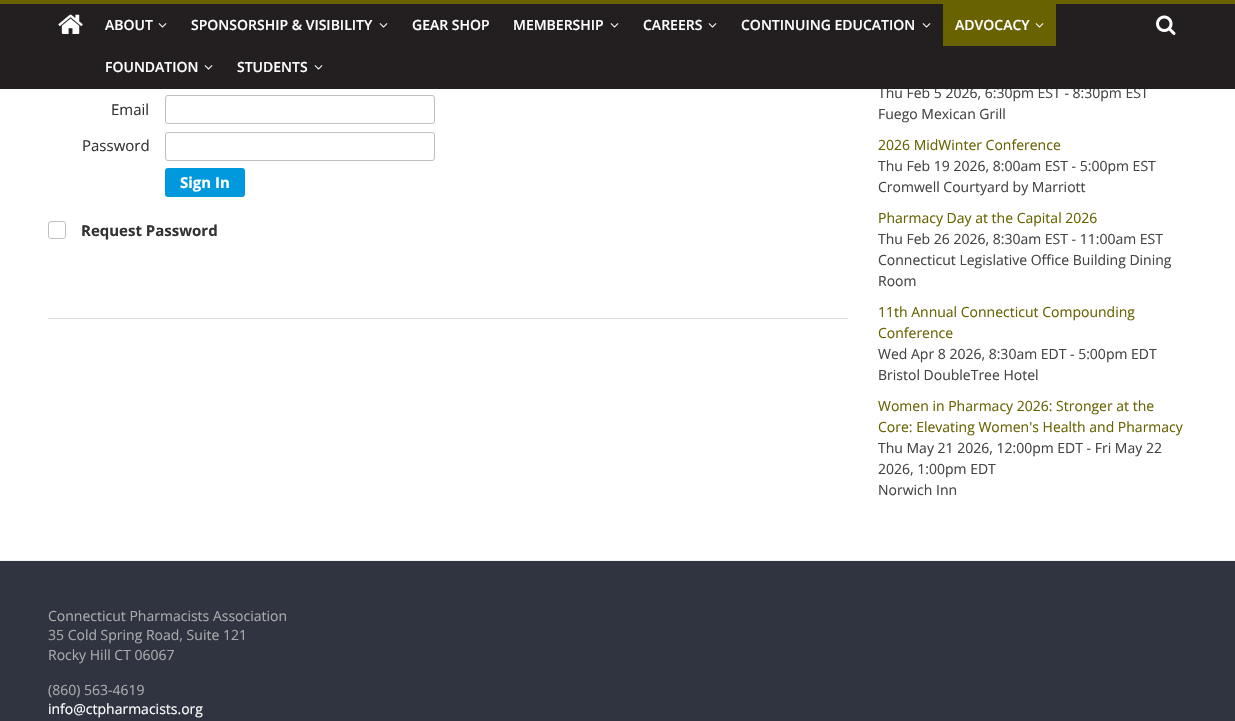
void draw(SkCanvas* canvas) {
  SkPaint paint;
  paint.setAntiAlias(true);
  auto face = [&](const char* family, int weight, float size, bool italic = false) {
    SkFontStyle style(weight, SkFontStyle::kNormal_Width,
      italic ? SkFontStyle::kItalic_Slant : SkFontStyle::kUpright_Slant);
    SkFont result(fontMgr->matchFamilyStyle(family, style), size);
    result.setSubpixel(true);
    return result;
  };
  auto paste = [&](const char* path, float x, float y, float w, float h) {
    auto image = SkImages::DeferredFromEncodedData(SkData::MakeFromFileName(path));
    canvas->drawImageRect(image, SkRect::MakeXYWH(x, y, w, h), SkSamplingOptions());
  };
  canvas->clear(0xffffffff);
  paint.setColor(0xff686200);
  canvas->drawRect(SkRect::MakeXYWH(0, 0, 1235, 4), paint);
  paint.setColor(0xffdddddd);
  canvas->drawRect(SkRect::MakeXYWH(48, 318, 800, 1), paint);
  paint.setStroke(true);
  paint.setStrokeWidth(1);
  paint.setColor(0xffbfbfbf);
  canvas->drawRoundRect(SkRect::MakeXYWH(165.5f, 95.5f, 269, 28), 2.5f, 2.5f, paint);
  canvas->drawRoundRect(SkRect::MakeXYWH(165.5f, 132.5f, 269, 28), 2.5f, 2.5f, paint);
  paint.setStroke(false);
  paint.setColor(0xff0099dd);
  canvas->drawRoundRect(SkRect::MakeXYWH(165, 168, 80, 29), 3, 3, paint);
  paint.setStroke(true);
  paint.setColor(0xffbfbfbf);
  canvas->drawRoundRect(SkRect::MakeXYWH(48.5f, 221.5f, 17, 17), 2.5f, 2.5f, paint);
  paint.setStroke(false);
  paint.setColor(0xff303440);
  canvas->drawRect(SkRect::MakeXYWH(0, 561, 1235, 160), paint);
  paint.setColor(0xfff2f2f2);
  canvas->drawRect(SkRect::MakeXYWH(0, 560, 1235, 1), paint);
  auto f0 = face("Open Sans", 400, 15);
  paint.setColor(0xff333333);
  canvas->drawString("Email", 111, 115, f0, paint);
  canvas->drawString("Password", 82, 151, f0, paint);
  auto f1 = face("Open Sans", 700, 15);
  paint.setColor(0xffffffff);
  canvas->drawString("Sign In", 180, 188, f1, paint);
  paint.setColor(0xff333333);
  canvas->drawString("Request Password", 81, 236, f1, paint);
  auto f2 = face("Open Sans", 400, 14);
  paint.setColor(0xff444444);
  canvas->drawString("Thu Feb 5 2026, 6:30pm EST - 8:30pm EST", 878, 98, f2, paint);
  paint.setColor(0xff231f20);
  canvas->drawRect(SkRect::MakeXYWH(0, 4, 1235, 85), paint);
  paste("img/2.png", 314, 65, 9, 5);
  auto f3 = face("Open Sans", 600, 14);
  paint.setColor(0xffffffff);
  canvas->drawString("STUDENTS", 237, 72, f3, paint);
  paste("img/2.png", 204, 65, 9, 5);
  canvas->drawString("FOUNDATION", 105, 72, f3, paint);
  paint.setColor(0xff686200);
  canvas->drawRect(SkRect::MakeXYWH(943, 4, 113, 42), paint);
  paste("img/3.png", 1035, 23, 9, 5);
  paint.setColor(0xffffffff);
  canvas->drawString("ADVOCACY", 955, 30, f3, paint);
  paste("img/2.png", 922, 23, 9, 5);
  canvas->drawString("CONTINUING EDUCATION", 741, 30, f3, paint);
  paste("img/2.png", 708, 23, 9, 5);
  canvas->drawString("CAREERS", 643, 30, f3, paint);
  paste("img/2.png", 610, 23, 9, 5);
  canvas->drawString("MEMBERSHIP", 513, 30, f3, paint);
  canvas->drawString("GEAR SHOP", 412, 30, f3, paint);
  paste("img/2.png", 379, 23, 9, 5);
  canvas->drawString("SPONSORSHIP & VISIBILITY", 191, 30, f3, paint);
  paste("img/2.png", 158, 23, 9, 5);
  canvas->drawString("ABOUT", 105, 30, f3, paint);
  paste("img/4.png", 1156, 15, 20, 20);
  paste("img/1.png", 58, 14, 25, 20);
  paint.setColor(0xff444444);
  canvas->drawString("Fuego Mexican Grill", 878, 119, f2, paint);
  paint.setColor(0xff686200);
  canvas->drawString("2026 MidWinter Conference", 878, 150, f2, paint);
  paint.setColor(0xff444444);
  canvas->drawString("Thu Feb 19 2026, 8:00am EST - 5:00pm EST", 878, 171, f2, paint);
  canvas->drawString("Cromwell Courtyard by Marriott", 878, 192, f2, paint);
  paint.setColor(0xff686200);
  canvas->drawString("Pharmacy Day at the Capital 2026", 878, 223, f2, paint);
  paint.setColor(0xff444444);
  {
    const struct { const char* s; float x, y; } items[] = {
      {"Thu Feb 26 2026, 8:30am EST - 11:00am EST", 878, 244},
      {"Connecticut Legislative Office Building Dining", 878, 265},
      {"Room", 878, 286},
    };
    for (auto [s, x, y] : items) {
      canvas->drawString(s, x, y, f2, paint);
    }
  }
  paint.setColor(0xff686200);
  canvas->drawString("11th Annual Connecticut Compounding", 878, 317, f2, paint);
  canvas->drawString("Conference", 878, 338, f2, paint);
  paint.setColor(0xff444444);
  canvas->drawString("Wed Apr 8 2026, 8:30am EDT - 5:00pm EDT", 878, 359, f2, paint);
  canvas->drawString("Bristol DoubleTree Hotel", 878, 380, f2, paint);
  paint.setColor(0xff686200);
  canvas->drawString("Women in Pharmacy 2026: Stronger at the", 878, 411, f2, paint);
  canvas->drawString("Core: Elevating Women's Health and Pharmacy", 878, 432, f2, paint);
  paint.setColor(0xff444444);
  {
    const struct { const char* s; float x, y; } items[] = {
      {"Thu May 21 2026, 12:00pm EDT - Fri May 22", 878, 453},
      {"2026, 1:00pm EDT", 878, 474},
      {"Norwich Inn", 878, 495},
    };
    for (auto [s, x, y] : items) {
      canvas->drawString(s, x, y, f2, paint);
    }
  }
  paint.setColor(0xffaaaaaa);
  {
    const struct { const char* s; float x, y; } items[] = {
      {"Connecticut Pharmacists Association", 48, 621},
      {"35 Cold Spring Road, Suite 121", 48, 640},
      {"Rocky Hill CT 06067", 48, 660},
      {"(860) 563-4619", 48, 695},
    };
    for (auto [s, x, y] : items) {
      canvas->drawString(s, x, y, f2, paint);
    }
  }
  paint.setColor(0xffffffff);
  canvas->drawString("info@ctpharmacists.org", 48, 714, f2, paint);
}
